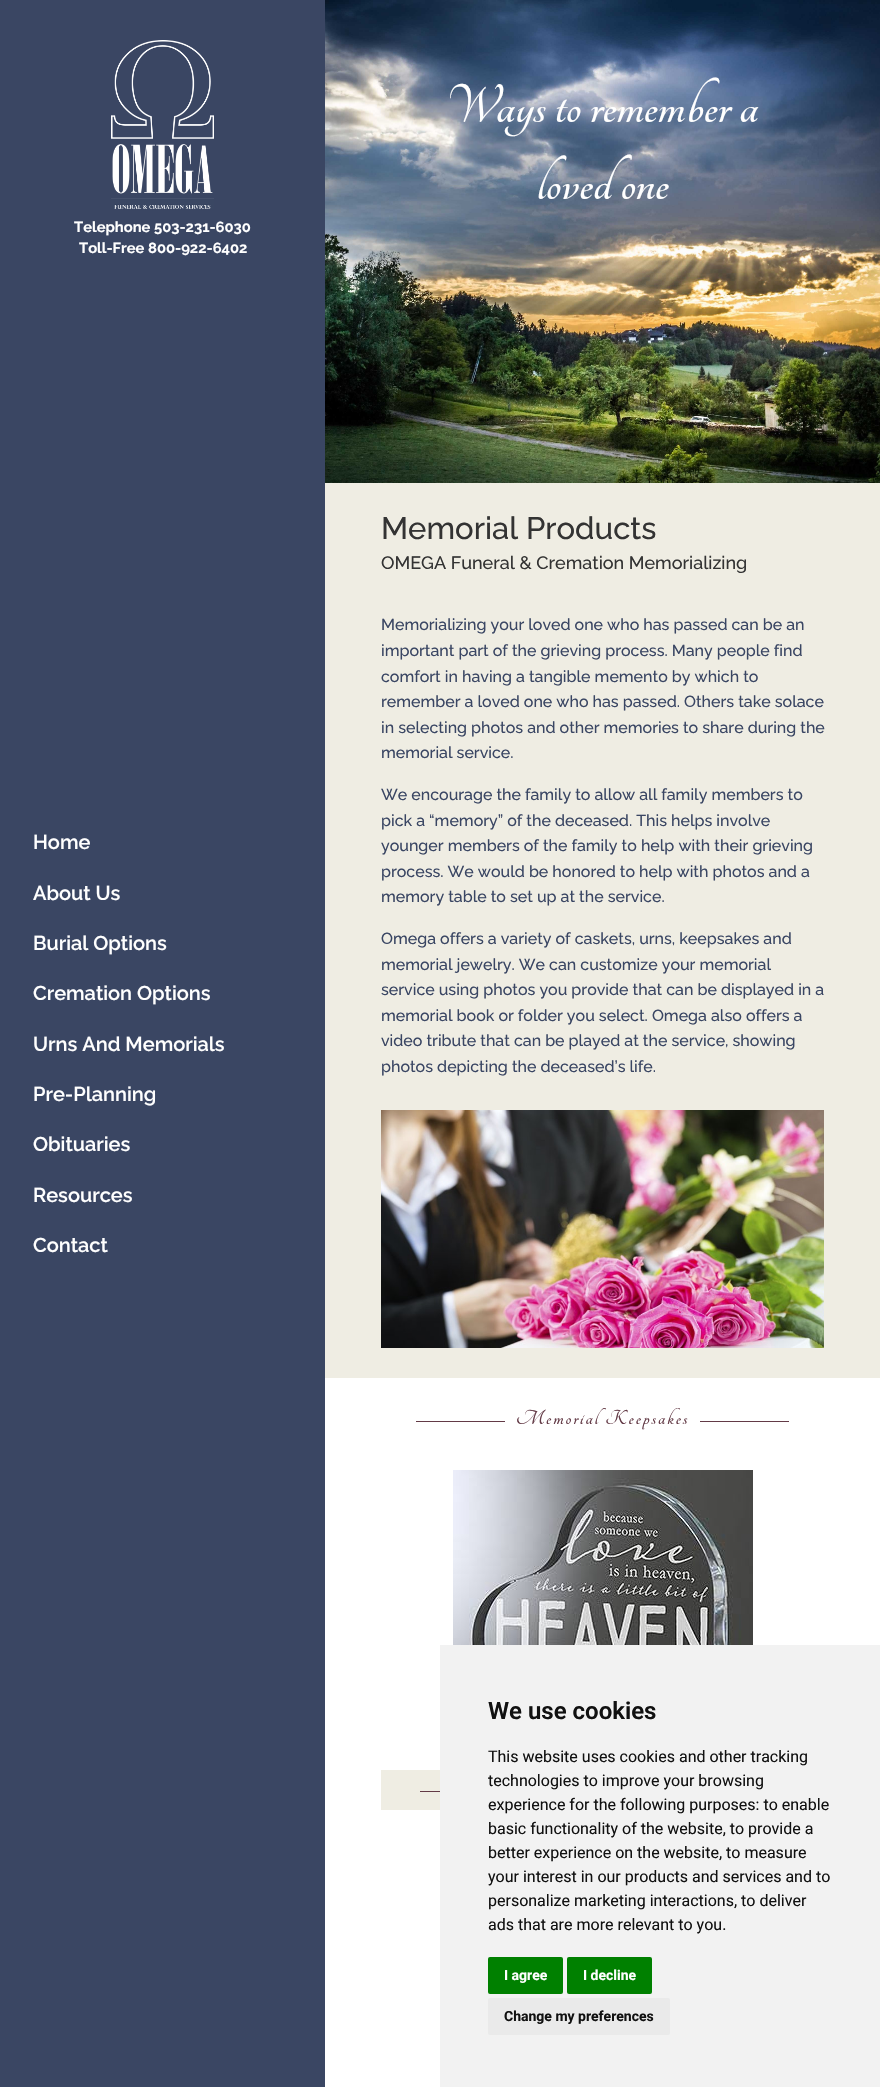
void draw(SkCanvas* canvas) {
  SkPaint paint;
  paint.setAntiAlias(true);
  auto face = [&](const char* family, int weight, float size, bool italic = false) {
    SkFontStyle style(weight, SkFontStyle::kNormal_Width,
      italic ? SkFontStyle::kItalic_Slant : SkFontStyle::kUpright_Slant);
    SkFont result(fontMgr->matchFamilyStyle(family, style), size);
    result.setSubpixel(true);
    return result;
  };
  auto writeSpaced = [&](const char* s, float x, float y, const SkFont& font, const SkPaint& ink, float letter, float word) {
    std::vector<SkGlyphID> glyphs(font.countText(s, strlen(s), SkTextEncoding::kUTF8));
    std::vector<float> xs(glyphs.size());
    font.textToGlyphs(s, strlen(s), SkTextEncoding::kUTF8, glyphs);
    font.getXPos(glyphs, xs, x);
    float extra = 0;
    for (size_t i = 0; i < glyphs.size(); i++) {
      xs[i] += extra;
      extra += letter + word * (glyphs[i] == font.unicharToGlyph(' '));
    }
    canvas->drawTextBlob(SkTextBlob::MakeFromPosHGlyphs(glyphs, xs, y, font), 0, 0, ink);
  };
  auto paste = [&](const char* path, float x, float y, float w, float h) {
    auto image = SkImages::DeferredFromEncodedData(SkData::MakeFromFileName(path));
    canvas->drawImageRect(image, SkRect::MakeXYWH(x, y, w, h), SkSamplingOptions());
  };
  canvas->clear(0xffffffff);
  paint.setColor(0xff3a4663);
  canvas->drawRect(SkRect::MakeXYWH(0, 0, 325, 2087), paint);
  paste("img/1.png", 111, 40, 103, 169);
  paste("img/2.png", 325, 0, 555, 483);
  paint.setColor(0xffefede3);
  canvas->drawRect(SkRect::MakeXYWH(325, 483, 555, 895), paint);
  paste("img/3.png", 381, 1110, 443, 238);
  paint.setColor(0xff633a46);
  canvas->drawRect(SkRect::MakeXYWH(416, 1421, 89, 1), paint);
  canvas->drawRect(SkRect::MakeXYWH(700, 1421, 89, 1), paint);
  paste("img/4.png", 453, 1470, 300, 175);
  {
    const struct { float x, y, w, h; SkColor color; } items[] = {
      {381, 1770, 59, 40, 0xffefede3},
      {420, 1791, 20, 1, 0xff633a46},
      {440, 1645, 440, 442, 0xfff2f2f2},
    };
    for (auto [x, y, w, h, color] : items) {
      paint.setColor(color);
      canvas->drawRect(SkRect::MakeXYWH(x, y, w, h), paint);
    }
  }
  paint.setColor(0xff008000);
  canvas->drawRoundRect(SkRect::MakeXYWH(488, 1957, 75, 37), 2, 2, paint);
  canvas->drawRoundRect(SkRect::MakeXYWH(567, 1957, 85, 37), 2, 2, paint);
  paint.setColor(0xffeaeaea);
  canvas->drawRoundRect(SkRect::MakeXYWH(488, 1998, 182, 37), 2, 2, paint);
  auto f0 = face("Raleway", 700, 14.75f);
  paint.setColor(0xffffffff);
  canvas->drawString("Telephone 503-231-6030", 74, 232, f0, paint);
  canvas->drawString("Toll-Free 800-922-6402", 79, 253, f0, paint);
  auto f1 = face("Raleway", 600, 20);
  {
    const struct { const char* s; float x, y; } items[] = {
      {"Home", 33, 849},
      {"About Us", 33, 900},
      {"Burial Options", 33, 950},
      {"Cremation Options", 33, 1000},
      {"Urns And Memorials", 33, 1051},
      {"Pre-Planning", 33, 1101},
      {"Obituaries", 33, 1151},
      {"Resources", 33, 1202},
      {"Contact", 33, 1252},
    };
    for (auto [s, x, y] : items) {
      canvas->drawString(s, x, y, f1, paint);
    }
  }
  auto f2 = face("Tangerine", 700, 59);
  canvas->drawString("Ways to remember a", 446, 122, f2, paint);
  canvas->drawString("loved one", 537, 199, f2, paint);
  auto f3 = face("Raleway", 500, 31);
  paint.setColor(0xff333333);
  canvas->drawString("Memorial Products", 381, 539, f3, paint);
  auto f4 = face("Raleway", 500, 18);
  canvas->drawString("OMEGA Funeral & Cremation Memorializing", 381, 569, f4, paint);
  auto f5 = face("Raleway", 500, 16);
  paint.setColor(0xff3a4663);
  {
    const struct { const char* s; float x, y; } items[] = {
      {"Memorializing your loved one who has passed can be an", 381, 630},
      {"important part of the grieving process. Many people find", 381, 656},
      {"comfort in having a tangible memento by which to", 381, 682},
      {"remember a loved one who has passed. Others take solace", 381, 707},
      {"in selecting photos and other memories to share during the", 381, 733},
      {"memorial service.", 381, 758},
      {"We encourage the family to allow all family members to", 381, 800},
      {"pick a “memory” of the deceased. This helps involve", 381, 826},
      {"younger members of the family to help with their grieving", 381, 851},
      {"process. We would be honored to help with photos and a", 381, 877},
      {"memory table to set up at the service.", 381, 902},
      {"Omega offers a variety of caskets, urns, keepsakes and", 381, 944},
      {"memorial jewelry. We can customize your memorial", 381, 970},
      {"service using photos you provide that can be displayed in a", 381, 995},
      {"memorial book or folder you select. Omega also offers a", 381, 1021},
      {"video tribute that can be played at the service, showing", 381, 1046},
      {"photos depicting the deceased’s life.", 381, 1072},
    };
    for (auto [s, x, y] : items) {
      canvas->drawString(s, x, y, f5, paint);
    }
  }
  canvas->save();
  canvas->clipRect(SkRect::MakeXYWH(381, 1408, 444, 32));
  auto f6 = face("Tangerine", 700, 22);
  paint.setColor(0xff633a46);
  writeSpaced("Memorial Keepsakes", 516, 1424, f6, paint, 2, 0);
  canvas->restore();
  auto f7 = face("Roboto", 600, 24);
  paint.setColor(0xff111111);
  canvas->drawString("We use cookies", 488, 1719, f7, paint);
  auto f8 = face("Roboto", 400, 16);
  {
    const struct { const char* s; float x, y; } items[] = {
      {"This website uses cookies and other tracking", 488, 1762},
      {"technologies to improve your browsing", 488, 1786},
      {"experience for the following purposes: to enable", 488, 1810},
      {"basic functionality of the website, to provide a", 488, 1834},
      {"better experience on the website, to measure", 488, 1858},
      {"your interest in our products and services and to", 488, 1882},
      {"personalize marketing interactions, to deliver", 488, 1906},
      {"ads that are more relevant to you.", 488, 1930},
    };
    for (auto [s, x, y] : items) {
      canvas->drawString(s, x, y, f8, paint);
    }
  }
  auto f9 = face("Roboto", 700, 14);
  paint.setColor(0xffffffff);
  canvas->drawString("I agree", 504, 1980, f9, paint);
  canvas->drawString("I decline", 583, 1980, f9, paint);
  paint.setColor(0xff111111);
  canvas->drawString("Change my preferences", 504, 2021, f9, paint);
}
